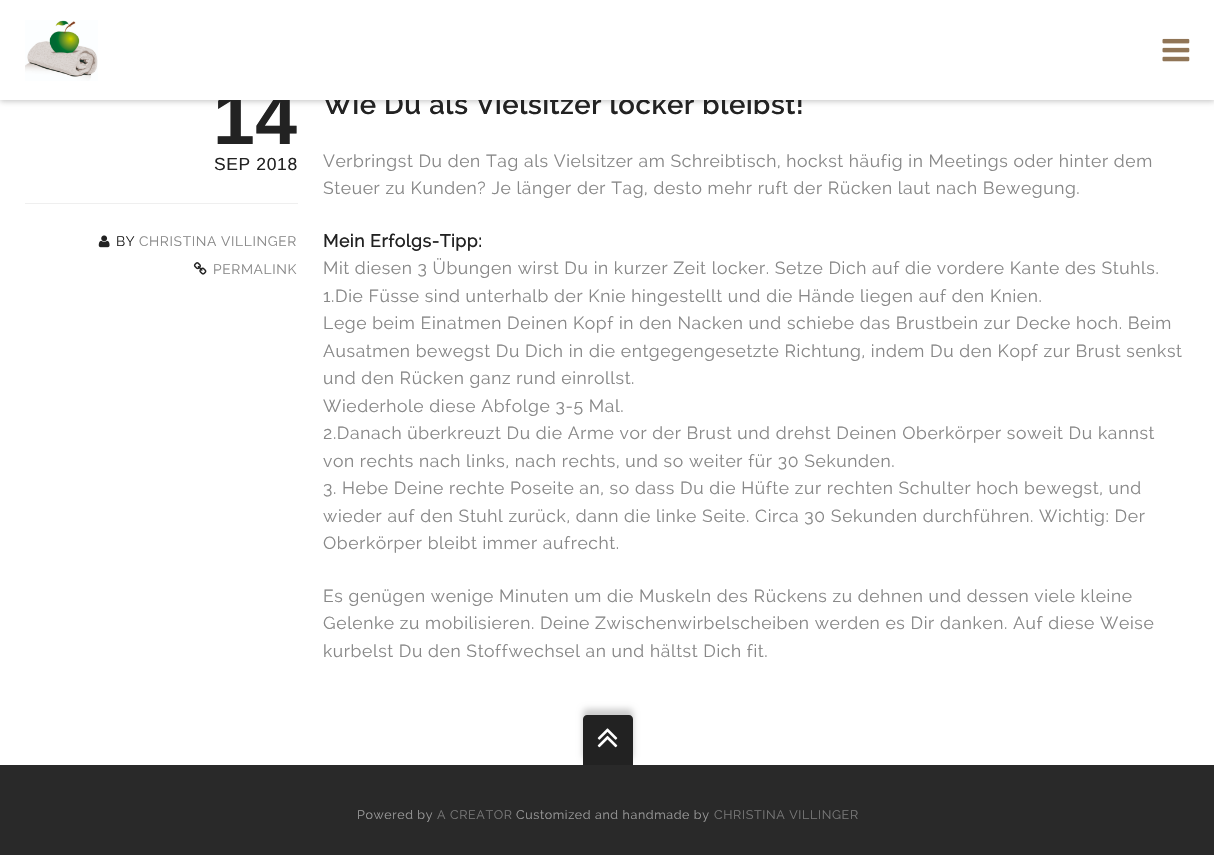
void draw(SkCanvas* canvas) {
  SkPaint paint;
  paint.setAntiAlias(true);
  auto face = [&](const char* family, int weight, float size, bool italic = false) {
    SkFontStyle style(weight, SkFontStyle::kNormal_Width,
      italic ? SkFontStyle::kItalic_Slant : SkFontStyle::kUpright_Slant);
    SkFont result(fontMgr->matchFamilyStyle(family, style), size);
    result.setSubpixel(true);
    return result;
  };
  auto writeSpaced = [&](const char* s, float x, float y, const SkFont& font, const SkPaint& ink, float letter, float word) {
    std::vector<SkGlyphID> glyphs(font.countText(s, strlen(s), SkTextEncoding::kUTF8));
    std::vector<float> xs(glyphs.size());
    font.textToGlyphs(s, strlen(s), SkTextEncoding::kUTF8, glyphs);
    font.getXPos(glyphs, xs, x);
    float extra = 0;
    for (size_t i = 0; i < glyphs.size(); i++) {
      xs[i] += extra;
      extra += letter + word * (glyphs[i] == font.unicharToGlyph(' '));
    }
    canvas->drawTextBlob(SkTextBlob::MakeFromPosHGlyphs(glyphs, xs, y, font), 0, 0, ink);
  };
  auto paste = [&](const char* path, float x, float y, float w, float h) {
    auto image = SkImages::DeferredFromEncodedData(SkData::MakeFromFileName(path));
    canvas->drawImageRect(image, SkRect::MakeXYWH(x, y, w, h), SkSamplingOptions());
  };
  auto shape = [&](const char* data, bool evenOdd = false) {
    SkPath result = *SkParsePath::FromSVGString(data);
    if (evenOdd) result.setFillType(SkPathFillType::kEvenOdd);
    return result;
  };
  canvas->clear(0xffffffff);
  paint.setColor(0x40000000);
  paint.setMaskFilter(SkMaskFilter::MakeBlur(kNormal_SkBlurStyle, 3));
  canvas->drawRect(SkRect::MakeXYWH(0, 1, 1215, 100), paint);
  paint.setMaskFilter(nullptr);
  paint.setColor(0xffefefef);
  canvas->drawRect(SkRect::MakeXYWH(25, 203, 273, 1), paint);
  paste("img/3.png", 98, 235, 12, 13);
  paste("img/4.png", 193, 262, 14, 13);
  paint.setColor(0xff292929);
  canvas->drawRect(SkRect::MakeXYWH(0, 765, 1214, 90), paint);
  paint.setColor(0x33000000);
  paint.setMaskFilter(SkMaskFilter::MakeBlur(kNormal_SkBlurStyle, 3));
  canvas->drawRoundRect(SkRect::MakeXYWH(583, 709, 50, 50), 4, 4, paint);
  paint.setMaskFilter(nullptr);
  paint.setColor(0xff222222);
  canvas->drawPath(shape("M587 715H629C631 715 633 717 633 719V765H583V719C583 717 585 715 587 715Z"), paint);
  paste("img/5.png", 597, 728, 21, 20);
  auto f0 = face("Liberation Sans", 700, 75);
  writeSpaced("14", 213, 144, f0, paint, 0.62f, 0);
  auto f1 = face("Liberation Sans", 400, 17.5f);
  writeSpaced("SEP 2018", 214, 170, f1, paint, 0.62f, 0);
  auto f2 = face("Raleway", 400, 13.75f);
  writeSpaced("BY", 116, 246, f2, paint, 0.62f, 0);
  paint.setColor(0xff888888);
  writeSpaced("CHRISTINA VILLINGER", 139, 246, f2, paint, 0.62f, 0);
  writeSpaced("PERMALINK", 213, 274, f2, paint, 0.62f, 0);
  auto f3 = face("Raleway", 600, 27.5f);
  paint.setColor(0xff222222);
  writeSpaced("Wie Du als Vielsitzer locker bleibst!", 323, 114, f3, paint, 0.62f, 0);
  paint.setColor(0xffffffff);
  canvas->drawRect(SkRect::MakeXYWH(0, 0, 1214, 100), paint);
  paste("img/2.png", 1162, 38, 28, 24);
  paste("img/1.png", 25, 20, 73, 61);
  auto f4 = face("Raleway", 400, 17.5f);
  paint.setColor(0xff888888);
  writeSpaced("Verbringst Du den Tag als Vielsitzer am Schreibtisch, hockst häufig in Meetings oder hinter dem", 323, 167, f4, paint, 0.62f, 0);
  writeSpaced("Steuer zu Kunden? Je länger der Tag, desto mehr ruft der Rücken laut nach Bewegung.", 323, 194, f4, paint, 0.62f, 0);
  auto f5 = face("Raleway", 700, 17.5f);
  paint.setColor(0xff222222);
  writeSpaced("Mein Erfolgs-Tipp:", 323, 247, f5, paint, 0.62f, 0);
  paint.setColor(0xff888888);
  {
    const struct { const char* s; float x, y; } items[] = {
      {"Mit diesen 3 Übungen wirst Du in kurzer Zeit locker. Setze Dich auf die vordere Kante des Stuhls.", 323, 274},
      {"1.Die Füsse sind unterhalb der Knie hingestellt und die Hände liegen auf den Knien.", 323, 302},
      {"Lege beim Einatmen Deinen Kopf in den Nacken und schiebe das Brustbein zur Decke hoch. Beim", 323, 329},
      {"Ausatmen bewegst Du Dich in die entgegengesetzte Richtung, indem Du den Kopf zur Brust senkst", 323, 357},
      {"und den Rücken ganz rund einrollst.", 323, 384},
      {"Wiederhole diese Abfolge 3-5 Mal.", 323, 412},
      {"2.Danach überkreuzt Du die Arme vor der Brust und drehst Deinen Oberkörper soweit Du kannst", 323, 439},
      {"von rechts nach links, nach rechts, und so weiter für 30 Sekunden.", 323, 467},
      {"3. Hebe Deine rechte Poseite an, so dass Du die Hüfte zur rechten Schulter hoch bewegst, und", 323, 494},
      {"wieder auf den Stuhl zurück, dann die linke Seite. Circa 30 Sekunden durchführen. Wichtig: Der", 323, 522},
      {"Oberkörper bleibt immer aufrecht.", 323, 549},
      {"Es genügen wenige Minuten um die Muskeln des Rückens zu dehnen und dessen viele kleine", 323, 602},
      {"Gelenke zu mobilisieren. Deine Zwischenwirbelscheiben werden es Dir danken. Auf diese Weise", 323, 629},
      {"kurbelst Du den Stoffwechsel an und hältst Dich fit.", 323, 657},
    };
    for (auto [s, x, y] : items) {
      writeSpaced(s, x, y, f4, paint, 0.62f, 0);
    }
  }
  auto f6 = face("Raleway", 400, 12.5f);
  paint.setColor(0xff999999);
  writeSpaced("Powered by", 357, 819, f6, paint, 0.62f, 0);
  paint.setColor(0xff777777);
  writeSpaced("A CREATOR", 437, 819, f6, paint, 0.62f, 0);
  paint.setColor(0xff999999);
  writeSpaced("Customized and handmade by", 516, 819, f6, paint, 0.62f, 0);
  paint.setColor(0xff777777);
  writeSpaced("CHRISTINA VILLINGER", 714, 819, f6, paint, 0.62f, 0);
}
